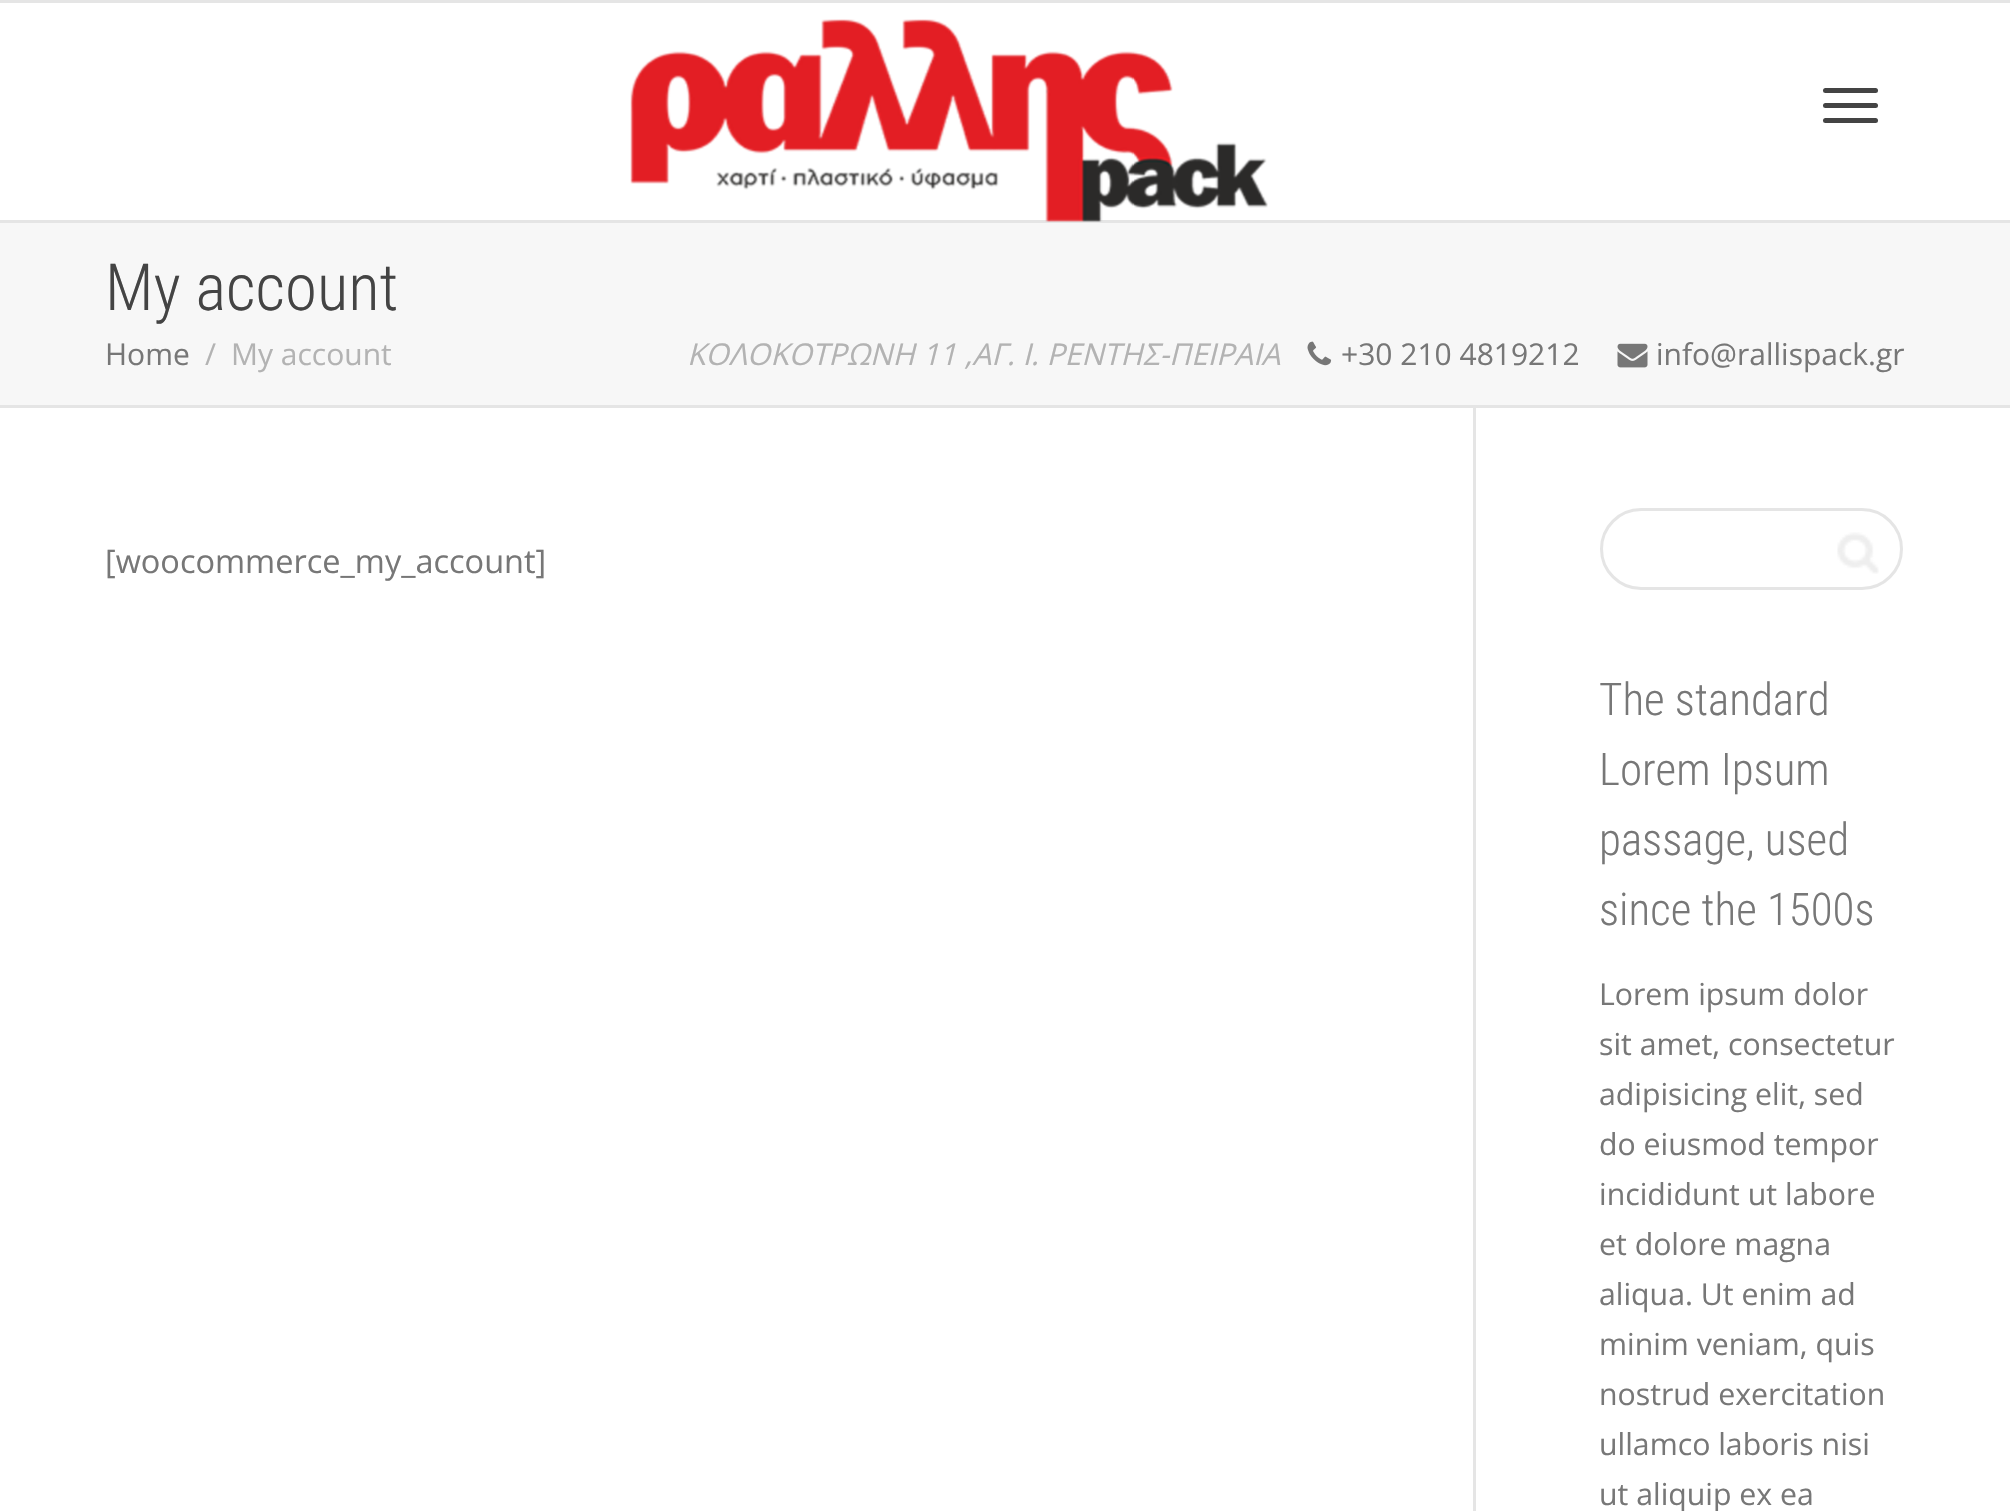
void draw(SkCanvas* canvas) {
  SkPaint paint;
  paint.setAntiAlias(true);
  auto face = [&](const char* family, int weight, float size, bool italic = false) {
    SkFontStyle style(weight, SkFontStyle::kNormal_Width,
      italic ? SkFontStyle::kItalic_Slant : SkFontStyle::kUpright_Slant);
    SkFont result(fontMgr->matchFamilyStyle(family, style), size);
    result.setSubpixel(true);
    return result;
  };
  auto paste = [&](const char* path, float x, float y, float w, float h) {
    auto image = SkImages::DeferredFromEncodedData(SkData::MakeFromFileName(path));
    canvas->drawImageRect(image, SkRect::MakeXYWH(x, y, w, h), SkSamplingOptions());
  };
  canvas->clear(0xffffffff);
  paint.setColor(0xffe5e5e5);
  canvas->drawRect(SkRect::MakeXYWH(0, 0, 2010, 3), paint);
  canvas->drawRect(SkRect::MakeXYWH(0, 220, 2010, 3), paint);
  paste("img/1.png", 630, 19, 638, 203);
  paint.setColor(0xff444444);
  canvas->drawRoundRect(SkRect::MakeXYWH(1823, 88, 55, 5), 2.5f, 2.5f, paint);
  canvas->drawRoundRect(SkRect::MakeXYWH(1823, 103, 55, 5), 2.5f, 2.5f, paint);
  canvas->drawRoundRect(SkRect::MakeXYWH(1823, 118, 55, 5), 2.5f, 2.5f, paint);
  paint.setColor(0xfff7f7f7);
  canvas->drawRect(SkRect::MakeXYWH(0, 223, 2010, 182), paint);
  paint.setColor(0xffe5e5e5);
  canvas->drawRect(SkRect::MakeXYWH(0, 405, 2010, 3), paint);
  paste("img/2.png", 1307, 341, 25, 25);
  paste("img/3.png", 1617, 343, 31, 25);
  canvas->drawRect(SkRect::MakeXYWH(1473, 408, 3, 1103), paint);
  paint.setStroke(true);
  paint.setStrokeWidth(3);
  canvas->drawRoundRect(SkRect::MakeXYWH(1601.5f, 509.5f, 300, 79), 39.5f, 39.5f, paint);
  paste("img/4.png", 1837, 532, 42, 42);
  auto f0 = face("Roboto Condensed", 300, 65);
  paint.setStroke(false);
  paint.setColor(0xff444444);
  canvas->drawString("My account", 105, 310, f0, paint);
  auto f1 = face("Open Sans", 400, 30);
  paint.setColor(0xff777777);
  canvas->drawString("Home", 105, 365, f1, paint);
  paint.setColor(0xffb3b3b3);
  canvas->drawString("/", 205, 365, f1, paint);
  canvas->drawString("My account", 231, 365, f1, paint);
  auto f2 = face("Open Sans", 400, 30, true);
  canvas->drawString("ΚΟΛΟΚΟΤΡΩΝΗ 11 ,ΑΓ. Ι. ΡΕΝΤΗΣ-ΠΕΙΡΑΙΑ", 687, 365, f2, paint);
  paint.setColor(0xff777777);
  canvas->drawString("+30 210 4819212", 1341, 365, f1, paint);
  canvas->drawString("info@rallispack.gr", 1656, 365, f1, paint);
  auto f3 = face("Open Sans", 400, 32.5f);
  canvas->drawString("[woocommerce_my_account]", 105, 573, f3, paint);
  auto f4 = face("Roboto Condensed", 300, 45);
  {
    const struct { const char* s; float x, y; } items[] = {
      {"The standard", 1599, 715},
      {"Lorem Ipsum", 1599, 785},
      {"passage, used", 1599, 855},
      {"since the 1500s", 1599, 925},
    };
    for (auto [s, x, y] : items) {
      canvas->drawString(s, x, y, f4, paint);
    }
  }
  auto f5 = face("Open Sans", 400, 30.25f);
  {
    const struct { const char* s; float x, y; } items[] = {
      {"Lorem ipsum dolor", 1599, 1005},
      {"sit amet, consectetur", 1599, 1055},
      {"adipisicing elit, sed", 1599, 1105},
      {"do eiusmod tempor", 1599, 1155},
      {"incididunt ut labore", 1599, 1205},
      {"et dolore magna", 1599, 1255},
      {"aliqua. Ut enim ad", 1599, 1305},
      {"minim veniam, quis", 1599, 1355},
      {"nostrud exercitation", 1599, 1405},
      {"ullamco laboris nisi", 1599, 1455},
      {"ut aliquip ex ea", 1599, 1505},
    };
    for (auto [s, x, y] : items) {
      canvas->drawString(s, x, y, f5, paint);
    }
  }
}
